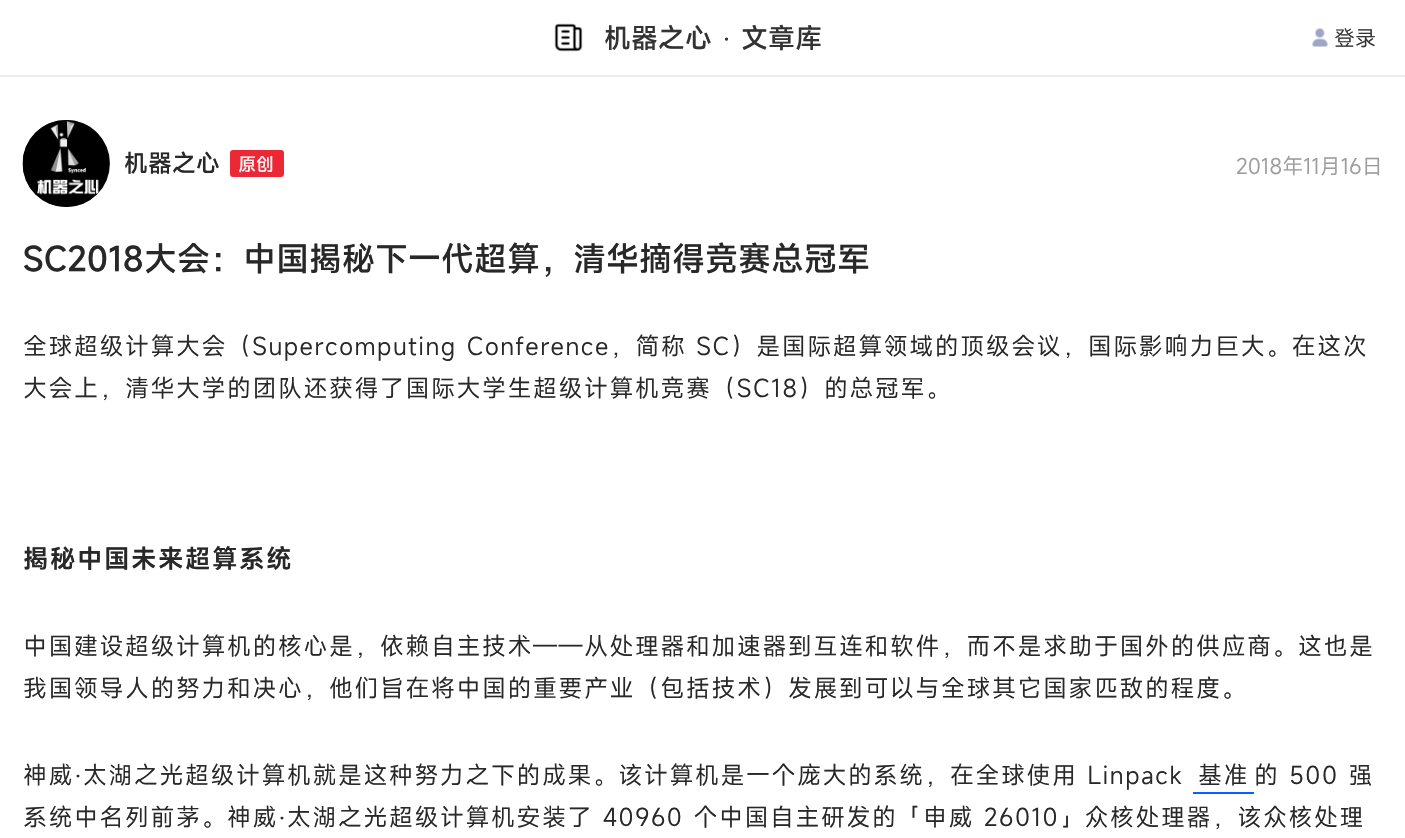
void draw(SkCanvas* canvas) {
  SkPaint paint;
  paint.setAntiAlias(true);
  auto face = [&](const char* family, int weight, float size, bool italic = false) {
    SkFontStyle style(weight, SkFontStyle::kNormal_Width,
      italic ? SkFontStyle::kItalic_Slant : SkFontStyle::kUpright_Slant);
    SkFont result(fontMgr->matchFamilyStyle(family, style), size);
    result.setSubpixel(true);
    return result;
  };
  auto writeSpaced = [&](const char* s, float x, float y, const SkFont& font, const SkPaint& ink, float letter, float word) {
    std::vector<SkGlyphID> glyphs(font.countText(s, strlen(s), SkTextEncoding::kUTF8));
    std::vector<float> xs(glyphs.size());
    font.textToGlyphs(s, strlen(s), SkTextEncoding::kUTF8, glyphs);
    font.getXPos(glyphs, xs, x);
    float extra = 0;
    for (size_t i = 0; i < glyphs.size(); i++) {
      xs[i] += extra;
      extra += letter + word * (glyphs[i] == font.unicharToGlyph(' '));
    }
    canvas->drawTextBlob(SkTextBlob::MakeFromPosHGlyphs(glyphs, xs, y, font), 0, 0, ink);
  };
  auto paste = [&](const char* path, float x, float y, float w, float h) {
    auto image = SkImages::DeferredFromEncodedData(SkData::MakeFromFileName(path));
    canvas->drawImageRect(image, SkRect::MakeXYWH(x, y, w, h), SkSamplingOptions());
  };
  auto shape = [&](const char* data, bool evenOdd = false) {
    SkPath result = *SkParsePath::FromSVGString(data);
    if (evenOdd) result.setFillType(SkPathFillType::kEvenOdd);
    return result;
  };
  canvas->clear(0xffffffff);
  paint.setColor(0xffebecf1);
  canvas->drawPath(shape("M0 75V77H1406V2V75Z"), paint);
  paste("img/1.png", 554, 23, 29, 29);
  paste("img/2.png", 1312, 28, 16, 19);
  paint.setColor(0xff333333);
  canvas->drawCircle(66.5f, 163.5f, 43.5f, paint);
  paste("img/3.png", 22, 120, 88, 87);
  paint.setColor(0xffeb2835);
  canvas->drawRoundRect(SkRect::MakeXYWH(230, 150, 54, 27), 3, 3, paint);
  paint.setColor(0xff0062ff);
  canvas->drawRect(SkRect::MakeXYWH(1193, 792, 61, 2), paint);
  auto f0 = face("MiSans", 500, 27);
  paint.setColor(0xff333333);
  canvas->drawString("机器之心", 604, 48, f0, paint);
  auto f1 = face("Liberation Serif", 400, 27);
  canvas->drawString("·", 722, 48, f1, paint);
  canvas->drawString("文章库", 741, 48, f0, paint);
  auto f2 = face("MiSans", 400, 21);
  canvas->drawString("登录", 1334, 46, f2, paint);
  auto f3 = face("MiSans", 500, 24);
  paint.setColor(0xff282828);
  canvas->drawString("机器之心", 124, 172, f3, paint);
  auto f4 = face("MiSans", 500, 18);
  paint.setColor(0xfff6f6f6);
  canvas->drawString("原创", 238, 171, f4, paint);
  paint.setColor(0xff9d9d9d);
  canvas->drawString("2018年11月16日", 1236, 174, f2, paint);
  auto f5 = face("MiSans", 500, 33);
  paint.setColor(0xff282828);
  canvas->drawString("SC2018大会：中国揭秘下一代超算，清华摘得竞赛总冠军", 23, 271, f5, paint);
  auto f6 = face("MiSans", 400, 24);
  writeSpaced("全球超级计算大会（Supercomputing Conference，简称 SC）是国际超算领域的顶级会议，国际影响力巨大。在这次", 23, 355, f6, paint, 1.5f, 0);
  writeSpaced("大会上，清华大学的团队还获得了国际大学生超级计算机竞赛（SC18）的总冠军。", 23, 397, f6, paint, 1.5f, 0);
  auto f7 = face("MiSans", 600, 25.5f);
  writeSpaced("揭秘中国未来超算系统", 23, 568, f7, paint, 1.5f, 0);
  {
    const struct { const char* s; float x, y; } items[] = {
      {"中国建设超级计算机的核心是，依赖自主技术——从处理器和加速器到互连和软件，而不是求助于国外的供应商。这也是", 23, 655},
      {"我国领导人的努力和决心，他们旨在将中国的重要产业（包括技术）发展到可以与全球其它国家匹敌的程度。", 23, 697},
      {"神威", 23, 784},
    };
    for (auto [s, x, y] : items) {
      writeSpaced(s, x, y, f6, paint, 1.5f, 0);
    }
  }
  auto f8 = face("Liberation Serif", 400, 24);
  writeSpaced("·", 74, 784, f8, paint, 1.5f, 0);
  {
    const struct { const char* s; float x, y; } items[] = {
      {"太湖之光超级计算机就是这种努力之下的成果。该计算机是一个庞大的系统，在全球使用 Linpack", 83, 784},
      {"基准", 1198, 784},
      {"的 500 强", 1254, 784},
      {"系统中名列前茅。神威", 23, 826},
    };
    for (auto [s, x, y] : items) {
      writeSpaced(s, x, y, f6, paint, 1.5f, 0);
    }
  }
  writeSpaced("·", 278, 826, f8, paint, 1.5f, 0);
  writeSpaced("太湖之光超级计算机安装了 40960 个中国自主研发的「申威 26010」众核处理器，该众核处理", 287, 826, f6, paint, 1.5f, 0);
}
